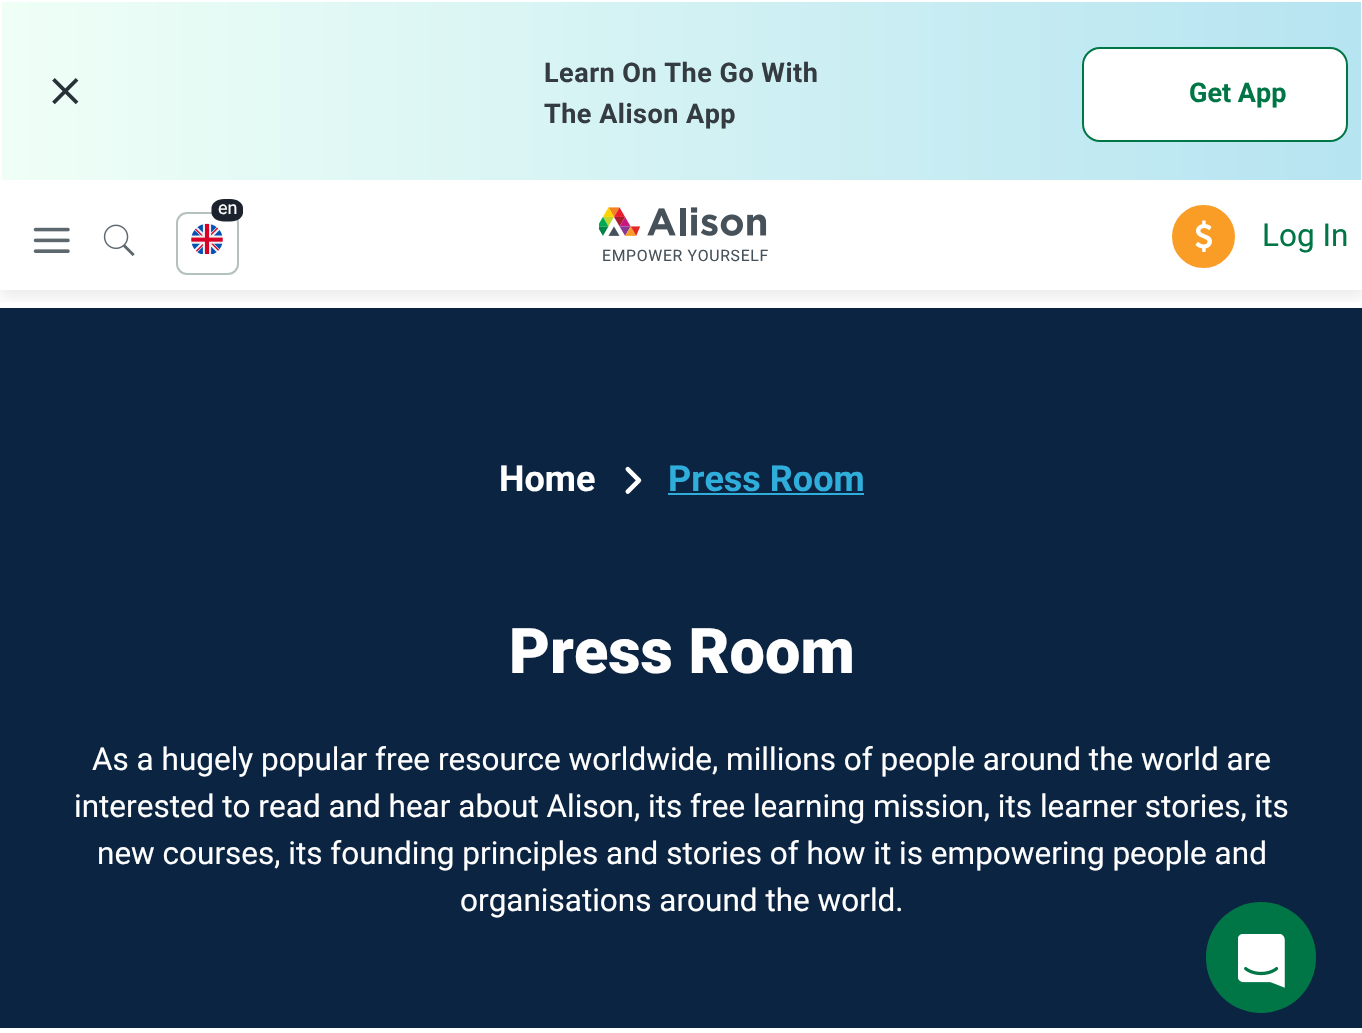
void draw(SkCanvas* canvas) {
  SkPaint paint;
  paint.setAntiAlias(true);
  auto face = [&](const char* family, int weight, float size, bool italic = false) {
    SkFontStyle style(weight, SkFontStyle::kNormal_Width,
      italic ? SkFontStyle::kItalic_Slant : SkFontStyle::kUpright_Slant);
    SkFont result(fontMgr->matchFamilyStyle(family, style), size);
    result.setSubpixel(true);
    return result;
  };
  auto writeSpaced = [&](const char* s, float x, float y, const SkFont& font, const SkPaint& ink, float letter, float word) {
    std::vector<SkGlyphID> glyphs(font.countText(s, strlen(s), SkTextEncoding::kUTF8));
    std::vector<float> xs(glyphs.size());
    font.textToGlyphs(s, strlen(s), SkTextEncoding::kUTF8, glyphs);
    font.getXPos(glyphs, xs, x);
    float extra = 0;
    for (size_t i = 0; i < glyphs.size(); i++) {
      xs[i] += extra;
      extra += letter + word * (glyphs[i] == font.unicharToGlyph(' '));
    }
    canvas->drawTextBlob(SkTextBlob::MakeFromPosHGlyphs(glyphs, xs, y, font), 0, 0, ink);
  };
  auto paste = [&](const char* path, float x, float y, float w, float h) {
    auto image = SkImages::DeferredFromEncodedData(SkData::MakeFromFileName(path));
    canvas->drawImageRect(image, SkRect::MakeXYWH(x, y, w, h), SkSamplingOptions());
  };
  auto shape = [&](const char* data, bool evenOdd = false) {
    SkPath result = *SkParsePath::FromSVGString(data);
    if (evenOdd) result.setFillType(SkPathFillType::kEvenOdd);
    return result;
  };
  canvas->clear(0xffffffff);
  paint.setColor(0xff0b2441);
  canvas->drawRect(SkRect::MakeXYWH(0, 308, 1362, 720), paint);
  canvas->save();
  canvas->clipRect(SkRect::MakeXYWH(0, 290, 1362, 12));
  paint.setColor(0x14000000);
  paint.setMaskFilter(SkMaskFilter::MakeBlur(kNormal_SkBlurStyle, 7));
  canvas->drawRect(SkRect::MakeXYWH(0, 189, 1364, 108), paint);
  paint.setMaskFilter(nullptr);
  canvas->restore();
  paint.setColor(0xffeffff6);
  canvas->drawRect(SkRect::MakeXYWH(1361, 2, 1, 178), paint);
  {
    const SkColor colors[] = {0xffeffff6, 0xffb6e4f1};
    const float stops[] = {0, 1};
    const SkPoint ends[] = {{2.2f, 91}, {1361, 91}};
    paint.setShader(SkGradientShader::MakeLinear(ends, colors, stops, 2, SkTileMode::kClamp));
    paint.setAlpha(255);
  }
  canvas->drawRect(SkRect::MakeXYWH(2, 2, 1359, 178), paint);
  paint.setStroke(true);
  paint.setStrokeWidth(2);
  paint.setShader(nullptr);
  paint.setColor(0xffffffff);
  canvas->drawRect(SkRect::MakeXYWH(1, 1, 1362, 180), paint);
  paste("img/1.png", 52, 78, 27, 27);
  paint.setStroke(false);
  canvas->drawRoundRect(SkRect::MakeXYWH(1083, 48, 264, 93), 17, 17, paint);
  paint.setStroke(true);
  paint.setColor(0xff007646);
  canvas->drawRoundRect(SkRect::MakeXYWH(1083, 48, 264, 93), 17, 17, paint);
  paint.setColor(0xffb3c2bc);
  canvas->drawRoundRect(SkRect::MakeXYWH(177, 213, 61, 61), 10, 10, paint);
  paint.setStroke(false);
  paint.setColor(0xff1c232e);
  canvas->drawPath(shape("M224 199H230.5C237.5 199 243 203 243 208V212.5C243 217.5 237.5 221.5 230.5 221.5H224C217 221.5 211.5 217.5 211.5 212.5V208C211.5 203 217 199 224 199Z"), paint);
  paste("img/2.png", 191, 223, 32, 31);
  paste("img/3.png", 33, 227, 37, 26);
  paste("img/4.png", 103, 224, 32, 33);
  paste("img/5.png", 599, 207, 168, 29);
  paint.setColor(0xfff99d27);
  canvas->drawCircle(1203.5f, 236.5f, 30.5f, paint);
  paint.setStroke(true);
  canvas->drawCircle(1203.5f, 236.5f, 30.5f, paint);
  paste("img/6.png", 1195, 220, 17, 32);
  paste("img/7.png", 625, 466, 17, 28);
  paint.setStroke(false);
  paint.setColor(0xff30aedb);
  canvas->drawRect(SkRect::MakeXYWH(668, 493, 196, 2), paint);
  paint.setColor(0xff007646);
  canvas->drawRoundRect(SkRect::MakeXYWH(1206, 902, 110, 111), 55, 55, paint);
  paste("img/8.png", 1238, 934, 47, 54);
  auto f0 = face("Roboto", 700, 27);
  paint.setColor(0xff343c41);
  writeSpaced("Learn On The Go With", 544, 82, f0, paint, 0.5f, 0);
  writeSpaced("The Alison App", 544, 123, f0, paint, 0.5f, 0);
  paint.setColor(0xff007646);
  canvas->drawString("Get App", 1189, 102, f0, paint);
  auto f1 = face("Roboto", 400, 18);
  paint.setColor(0xffffffff);
  canvas->drawString("en", 218, 214, f1, paint);
  auto f2 = face("Roboto", 400, 15.75f);
  paint.setColor(0xff465159);
  writeSpaced("EMPOWER YOURSELF", 602, 261, f2, paint, 0.7f, 0);
  auto f3 = face("Roboto", 400, 31.5f);
  paint.setColor(0xff007646);
  canvas->drawString("Log In", 1262, 246, f3, paint);
  auto f4 = face("Roboto", 700, 36);
  paint.setColor(0xffffffff);
  canvas->drawString("Home", 499, 491, f4, paint);
  paint.setColor(0xff30aedb);
  canvas->drawString("Press Room", 668, 491, f4, paint);
  auto f5 = face("Roboto", 900, 63);
  paint.setColor(0xffffffff);
  canvas->drawString("Press Room", 509, 673, f5, paint);
  {
    const struct { const char* s; float x, y; } items[] = {
      {"As a hugely popular free resource worldwide, millions of people around the world are", 92, 770},
      {"interested to read and hear about Alison, its free learning mission, its learner stories, its", 74, 817},
      {"new courses, its founding principles and stories of how it is empowering people and", 97, 864},
      {"organisations around the world.", 460, 911},
    };
    for (auto [s, x, y] : items) {
      canvas->drawString(s, x, y, f3, paint);
    }
  }
}
